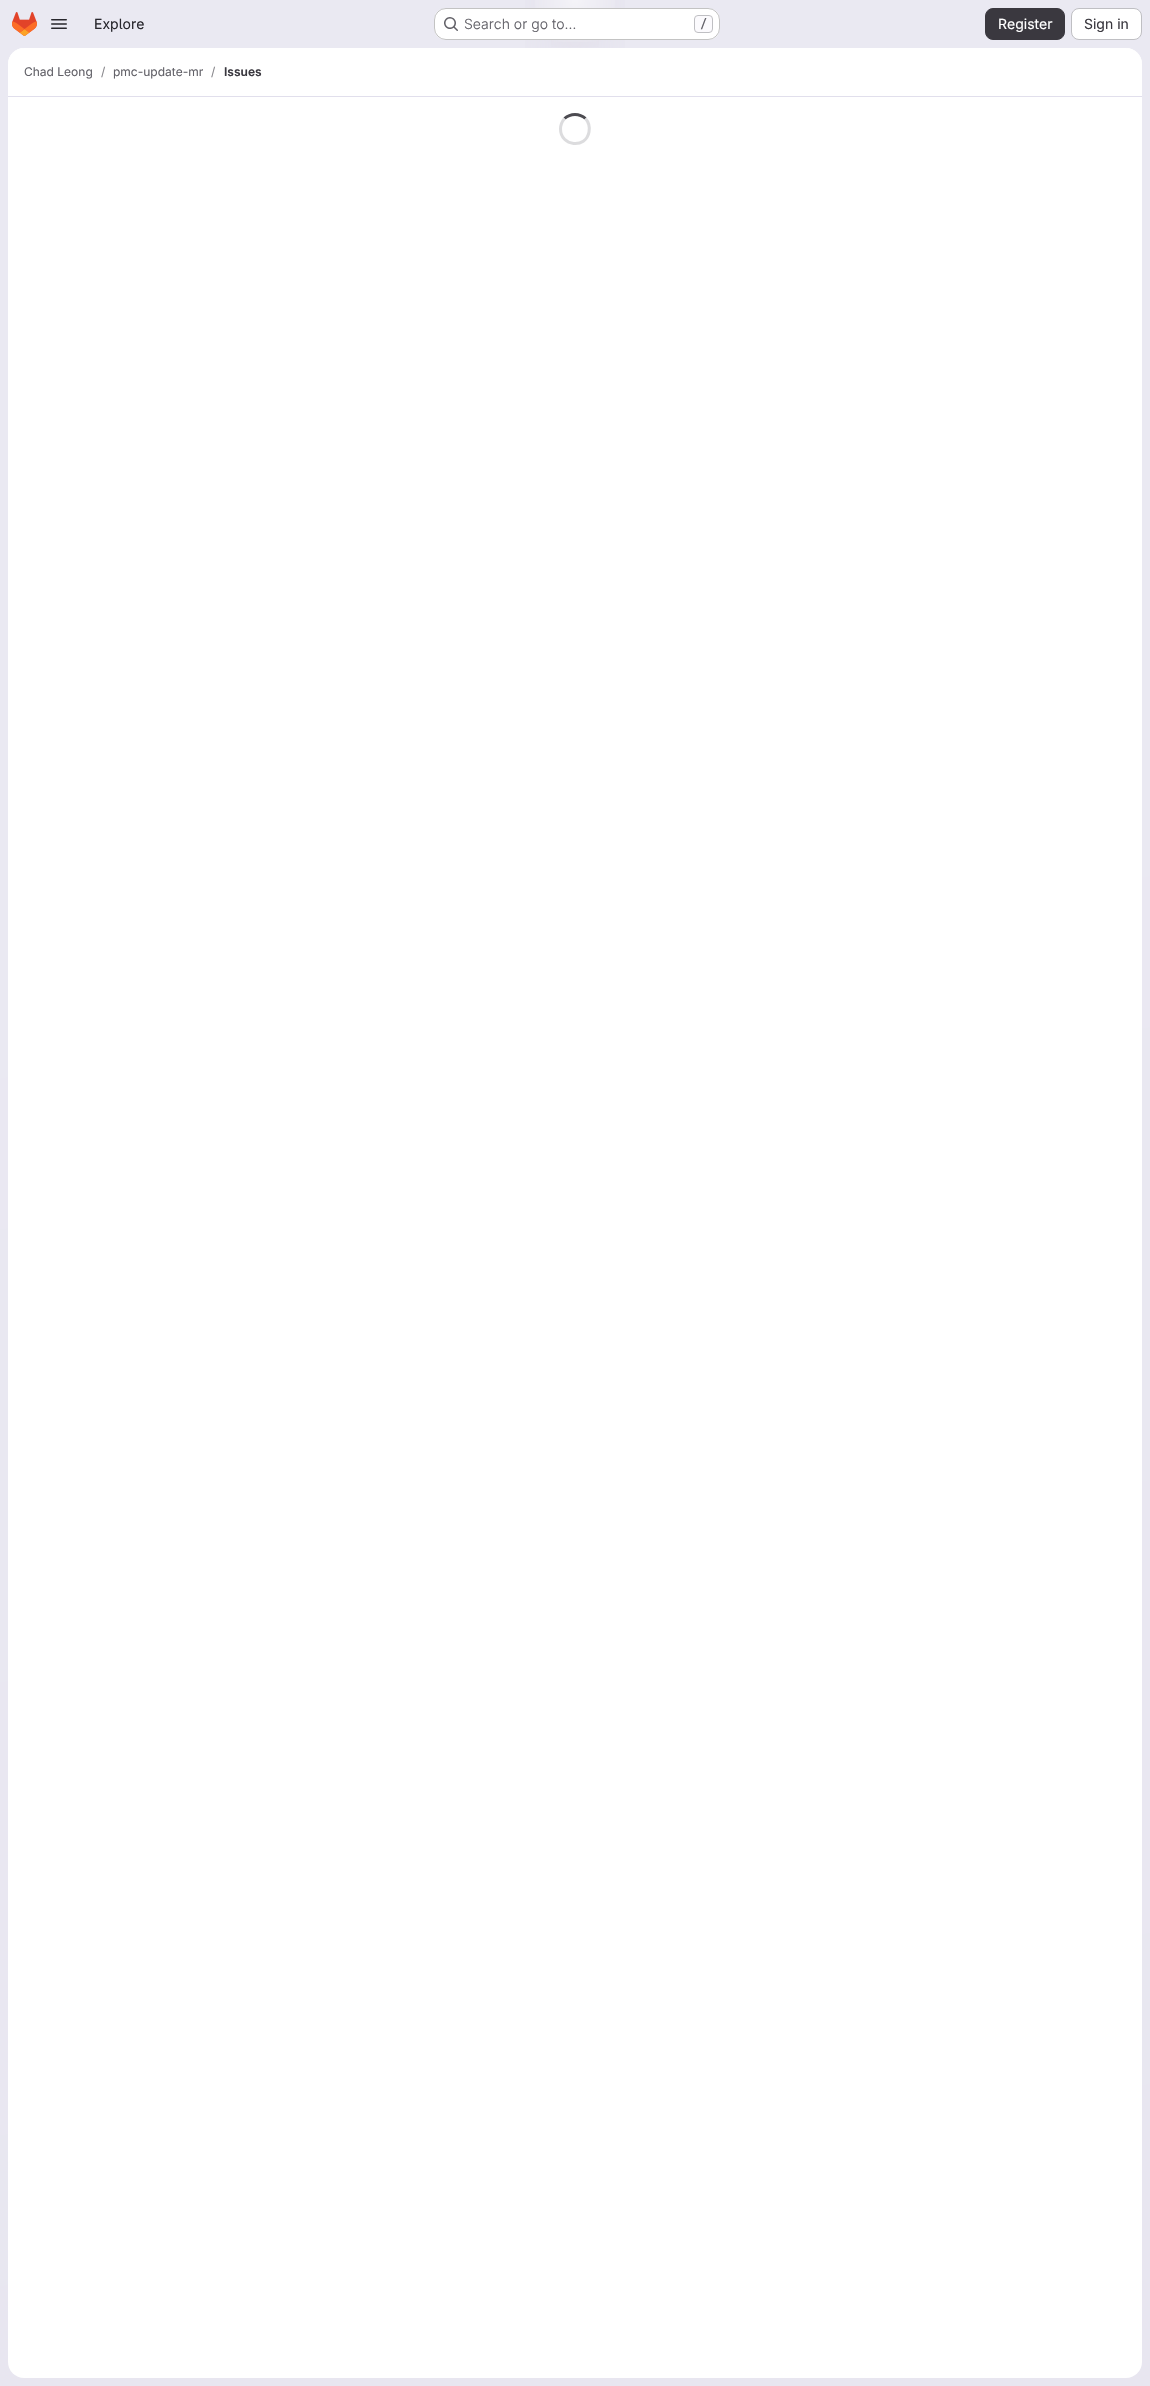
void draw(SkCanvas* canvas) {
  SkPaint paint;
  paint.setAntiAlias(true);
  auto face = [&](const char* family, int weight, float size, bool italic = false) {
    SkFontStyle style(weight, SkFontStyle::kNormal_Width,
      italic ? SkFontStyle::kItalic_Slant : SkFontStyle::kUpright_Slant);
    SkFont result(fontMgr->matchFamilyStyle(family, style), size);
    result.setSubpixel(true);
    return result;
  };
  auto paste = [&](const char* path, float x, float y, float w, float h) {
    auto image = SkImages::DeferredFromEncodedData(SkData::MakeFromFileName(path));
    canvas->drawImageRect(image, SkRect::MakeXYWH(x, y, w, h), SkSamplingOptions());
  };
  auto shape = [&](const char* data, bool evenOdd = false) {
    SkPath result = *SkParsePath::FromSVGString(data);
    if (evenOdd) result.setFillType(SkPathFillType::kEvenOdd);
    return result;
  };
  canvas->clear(0xffffffff);
  {
    const SkColor colors[] = {0xffe8e6f0, 0xffeae9f2};
    const float stops[] = {0, 0.7f};
    const SkPoint ends[] = {{796, 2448}, {354, -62}};
    paint.setShader(SkGradientShader::MakeLinear(ends, colors, stops, 2, SkTileMode::kClamp));
    paint.setAlpha(255);
  }
  canvas->drawRect(SkRect::MakeXYWH(0, 0, 1150, 2386), paint);
  {
    const SkColor colors[] = {0xffe4e2ed, 0x00e4e2ed};
    const float stops[] = {0, 0.12f};
    SkMatrix m = SkMatrix::Translate(575, 0).preScale(575, 2386);
    paint.setShader(SkGradientShader::MakeRadial({0, 0}, 1, colors, stops, 2, SkTileMode::kClamp, 0, &m));
    paint.setAlpha(255);
  }
  canvas->drawRect(SkRect::MakeXYWH(525, 0, 100, 48), paint);
  {
    const SkColor colors[] = {0xffe4e2ec, 0x00e4e2ec};
    const float stops[] = {0, 0.09f};
    SkMatrix m = SkMatrix::Translate(575, 0).preScale(575, 2386);
    paint.setShader(SkGradientShader::MakeRadial({0, 0}, 1, colors, stops, 2, SkTileMode::kClamp, 0, &m));
    paint.setAlpha(255);
  }
  canvas->drawRect(SkRect::MakeXYWH(551, 8, 48, 39), paint);
  {
    const SkColor colors[] = {0x99ffffff, 0x00ffffff};
    const float stops[] = {0, 0.02f};
    paint.setShader(SkGradientShader::MakeRadial({575, 0}, 2454, colors, stops, 2, SkTileMode::kClamp));
    paint.setAlpha(255);
  }
  canvas->drawRect(SkRect::MakeXYWH(535, 0, 80, 42), paint);
  paste("img/1.png", 12, 12, 25, 24);
  paste("img/2.png", 51, 19, 16, 10);
  paint.setShader(nullptr);
  paint.setColor(0xffffffff);
  canvas->drawRoundRect(SkRect::MakeXYWH(434, 8, 286, 32), 12, 12, paint);
  paint.setStroke(true);
  paint.setStrokeWidth(1);
  paint.setColor(0x3d050506);
  canvas->drawRoundRect(SkRect::MakeXYWH(434.5f, 8.5f, 285, 31), 11.5f, 11.5f, paint);
  paste("img/3.png", 444, 17, 14, 14);
  paint.setStroke(false);
  paint.setColor(0xfffbfafd);
  canvas->drawRoundRect(SkRect::MakeXYWH(694.5f, 15.5f, 18, 17), 3.5f, 3.5f, paint);
  paint.setStroke(true);
  paint.setColor(0xffbfbfc3);
  canvas->drawRoundRect(SkRect::MakeXYWH(694.5f, 15.5f, 18, 17), 3.5f, 3.5f, paint);
  paint.setStroke(false);
  paint.setColor(0xff3a383f);
  canvas->drawRoundRect(SkRect::MakeXYWH(985.5f, 8.5f, 79, 31), 7.5f, 7.5f, paint);
  paint.setStroke(true);
  canvas->drawRoundRect(SkRect::MakeXYWH(985.5f, 8.5f, 79, 31), 7.5f, 7.5f, paint);
  paint.setStroke(false);
  paint.setColor(0xffffffff);
  canvas->drawRoundRect(SkRect::MakeXYWH(1071.5f, 8.5f, 70, 31), 7.5f, 7.5f, paint);
  paint.setStroke(true);
  paint.setColor(0xffbfbfc3);
  canvas->drawRoundRect(SkRect::MakeXYWH(1071.5f, 8.5f, 70, 31), 7.5f, 7.5f, paint);
  paint.setStroke(false);
  paint.setColor(0xffffffff);
  canvas->drawRoundRect(SkRect::MakeXYWH(8, 48, 1134, 2330), 16, 16, paint);
  canvas->drawPath(shape("M24 48H1126C1135 48 1142 55 1142 64V97H8V64C8 55 15 48 24 48Z"), paint);
  paint.setColor(0xffe1dfec);
  canvas->drawRect(SkRect::MakeXYWH(8, 96, 1134, 1), paint);
  paint.setStroke(true);
  paint.setStrokeWidth(3);
  paint.setColor(0xff4c4b51);
  canvas->drawPath(shape("M564.5 118.5C570.5 113 579.5 113 585.5 118.5"), paint);
  paint.setColor(0xffdcdcde);
  canvas->drawPath(shape("M585.5 118.5C588.5 122 590 127 589 132C586 149 560.5 146.5 560.5 129C560.5 125 562 121.5 564.5 118.5"), paint);
  auto f0 = face("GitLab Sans", 400, 14);
  paint.setStroke(false);
  paint.setColor(0xff28272d);
  canvas->drawString("Explore", 94, 29, f0, paint);
  auto f1 = face("GitLab Sans", 300, 14);
  paint.setColor(0xff626168);
  canvas->drawString("Search or go to…", 464, 29, f1, paint);
  auto f2 = face("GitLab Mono", 500, 12);
  canvas->drawString("/", 700, 28, f2, paint);
  paint.setColor(0xffffffff);
  canvas->drawString("Register", 998, 29, f0, paint);
  paint.setColor(0xff3a383f);
  canvas->drawString("Sign in", 1084, 29, f0, paint);
  auto f3 = face("GitLab Sans", 400, 12);
  paint.setColor(0xff626168);
  canvas->drawString("Chad Leong", 24, 76, f3, paint);
  paint.setColor(0xff89888d);
  canvas->drawString("/", 101, 76, f3, paint);
  paint.setColor(0xff626168);
  canvas->drawString("pmc-update-mr", 113, 76, f3, paint);
  paint.setColor(0xff89888d);
  canvas->drawString("/", 211, 76, f3, paint);
  auto f4 = face("GitLab Sans", 600, 12);
  paint.setColor(0xff3a383f);
  canvas->drawString("Issues", 224, 76, f4, paint);
}
